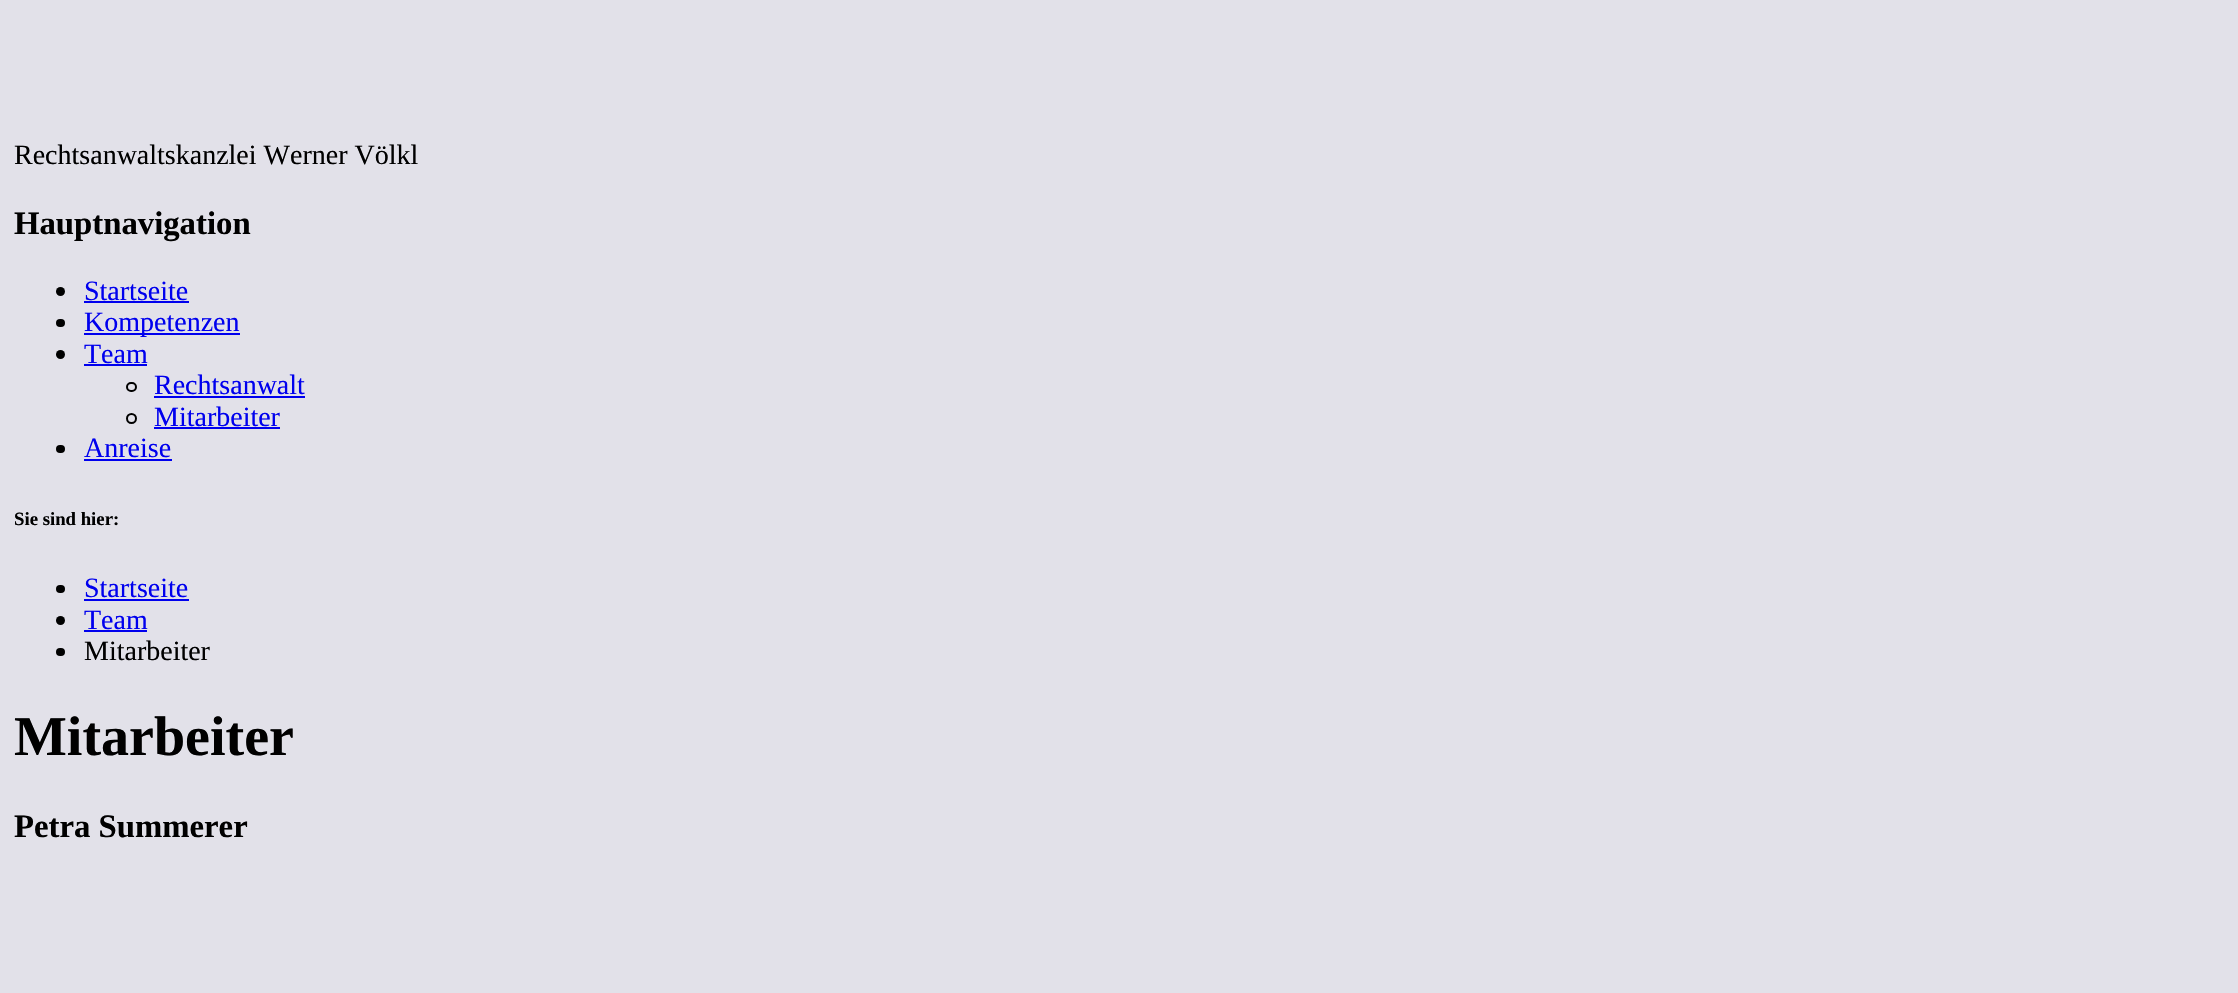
void draw(SkCanvas* canvas) {
  SkPaint paint;
  paint.setAntiAlias(true);
  auto face = [&](const char* family, int weight, float size, bool italic = false) {
    SkFontStyle style(weight, SkFontStyle::kNormal_Width,
      italic ? SkFontStyle::kItalic_Slant : SkFontStyle::kUpright_Slant);
    SkFont result(fontMgr->matchFamilyStyle(family, style), size);
    result.setSubpixel(true);
    return result;
  };
  canvas->clear(0xffe2e1e9);
  paint.setColor(0xff000000);
  canvas->drawCircle(60.5f, 291.5f, 4.5f, paint);
  paint.setColor(0xff0000ee);
  canvas->drawRect(SkRect::MakeXYWH(84, 301, 105, 2), paint);
  paint.setColor(0xff000000);
  canvas->drawRoundRect(SkRect::MakeXYWH(56, 319, 9, 8), 4, 4, paint);
  paint.setColor(0xff0000ee);
  canvas->drawRect(SkRect::MakeXYWH(84, 333, 156, 2), paint);
  paint.setColor(0xff000000);
  canvas->drawCircle(60.5f, 354.5f, 4.5f, paint);
  paint.setColor(0xff0000ee);
  canvas->drawRect(SkRect::MakeXYWH(84, 364, 63, 2), paint);
  paint.setStroke(true);
  paint.setStrokeWidth(2);
  paint.setColor(0xff000000);
  canvas->drawRoundRect(SkRect::MakeXYWH(127, 383, 9, 8), 4, 4, paint);
  paint.setStroke(false);
  paint.setColor(0xff0000ee);
  canvas->drawRect(SkRect::MakeXYWH(154, 396, 151, 2), paint);
  paint.setStroke(true);
  paint.setColor(0xff000000);
  canvas->drawCircle(131.5f, 418.5f, 4.5f, paint);
  paint.setStroke(false);
  paint.setColor(0xff0000ee);
  canvas->drawRect(SkRect::MakeXYWH(154, 427, 126, 2), paint);
  paint.setColor(0xff000000);
  canvas->drawRoundRect(SkRect::MakeXYWH(56, 445, 9, 8), 4, 4, paint);
  paint.setColor(0xff0000ee);
  canvas->drawRect(SkRect::MakeXYWH(84, 459, 88, 2), paint);
  paint.setColor(0xff000000);
  canvas->drawRoundRect(SkRect::MakeXYWH(56, 585, 9, 8), 4, 4, paint);
  paint.setColor(0xff0000ee);
  canvas->drawRect(SkRect::MakeXYWH(84, 599, 105, 2), paint);
  paint.setColor(0xff000000);
  canvas->drawCircle(60.5f, 620.5f, 4.5f, paint);
  paint.setColor(0xff0000ee);
  canvas->drawRect(SkRect::MakeXYWH(84, 630, 63, 2), paint);
  paint.setColor(0xff000000);
  canvas->drawRoundRect(SkRect::MakeXYWH(56, 648, 9, 8), 4, 4, paint);
  auto f0 = face("Liberation Serif", 400, 28);
  canvas->drawString("Rechtsanwaltskanzlei Werner Völkl", 14, 164, f0, paint);
  auto f1 = face("Liberation Serif", 700, 32.75f);
  canvas->drawString("Hauptnavigation", 14, 234, f1, paint);
  paint.setColor(0xff0000ee);
  {
    const struct { const char* s; float x, y; } items[] = {
      {"Startseite", 84, 300},
      {"Kompetenzen", 84, 331},
      {"Team", 84, 363},
      {"Rechtsanwalt", 154, 394},
      {"Mitarbeiter", 154, 426},
      {"Anreise", 84, 457},
    };
    for (auto [s, x, y] : items) {
      canvas->drawString(s, x, y, f0, paint);
    }
  }
  auto f2 = face("Liberation Serif", 700, 18.75f);
  paint.setColor(0xff000000);
  canvas->drawString("Sie sind hier:", 14, 525, f2, paint);
  paint.setColor(0xff0000ee);
  canvas->drawString("Startseite", 84, 597, f0, paint);
  canvas->drawString("Team", 84, 629, f0, paint);
  paint.setColor(0xff000000);
  canvas->drawString("Mitarbeiter", 84, 660, f0, paint);
  auto f3 = face("Liberation Serif", 700, 56);
  canvas->drawString("Mitarbeiter", 14, 755, f3, paint);
  canvas->drawString("Petra Summerer", 14, 837, f1, paint);
}
